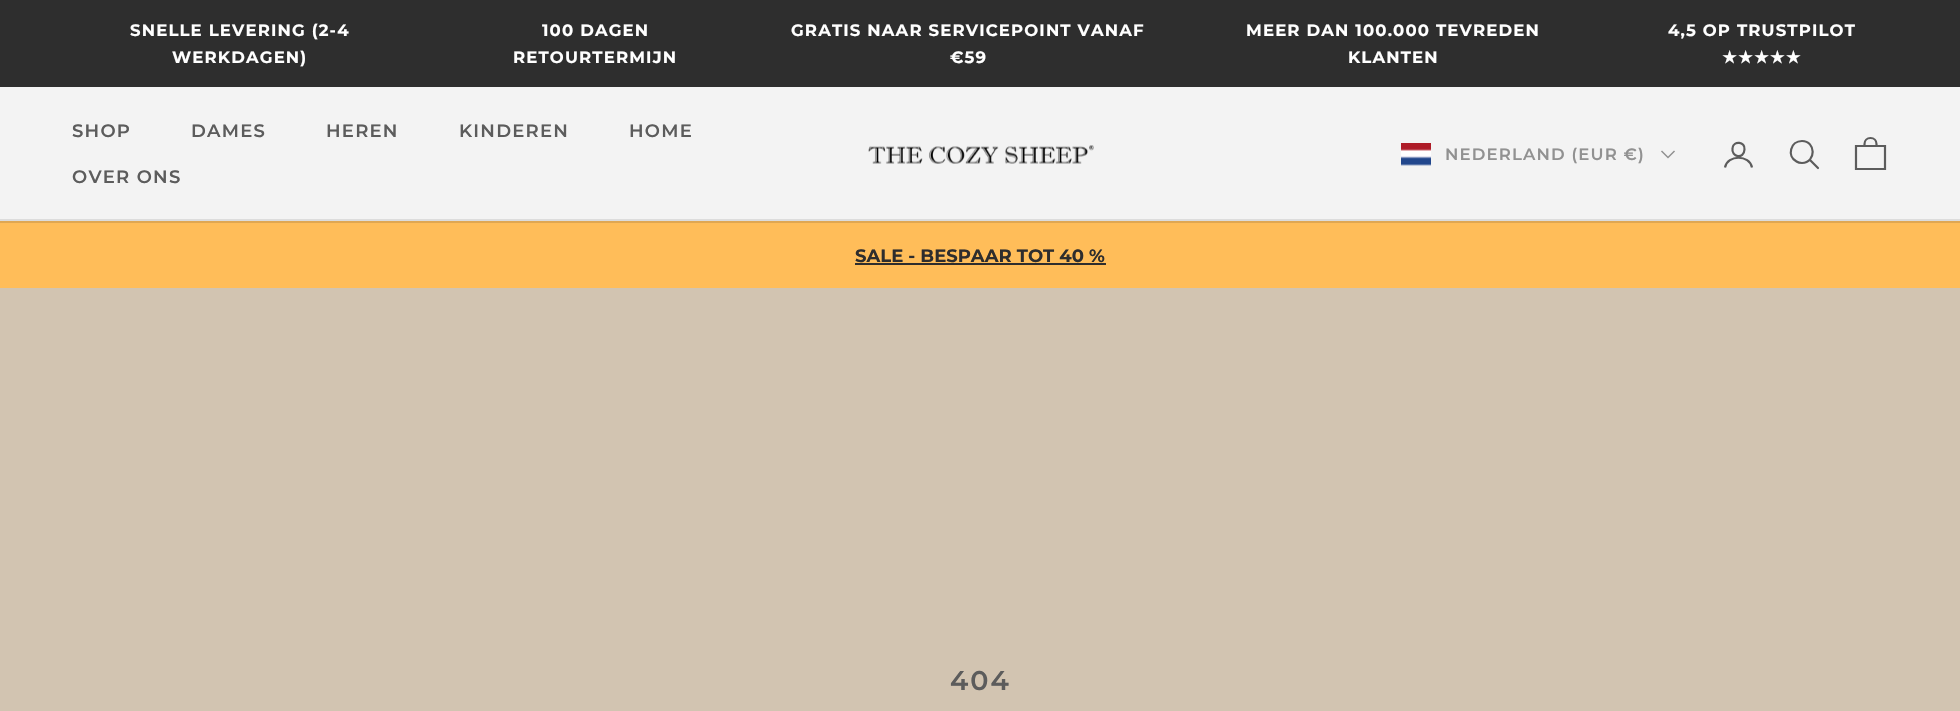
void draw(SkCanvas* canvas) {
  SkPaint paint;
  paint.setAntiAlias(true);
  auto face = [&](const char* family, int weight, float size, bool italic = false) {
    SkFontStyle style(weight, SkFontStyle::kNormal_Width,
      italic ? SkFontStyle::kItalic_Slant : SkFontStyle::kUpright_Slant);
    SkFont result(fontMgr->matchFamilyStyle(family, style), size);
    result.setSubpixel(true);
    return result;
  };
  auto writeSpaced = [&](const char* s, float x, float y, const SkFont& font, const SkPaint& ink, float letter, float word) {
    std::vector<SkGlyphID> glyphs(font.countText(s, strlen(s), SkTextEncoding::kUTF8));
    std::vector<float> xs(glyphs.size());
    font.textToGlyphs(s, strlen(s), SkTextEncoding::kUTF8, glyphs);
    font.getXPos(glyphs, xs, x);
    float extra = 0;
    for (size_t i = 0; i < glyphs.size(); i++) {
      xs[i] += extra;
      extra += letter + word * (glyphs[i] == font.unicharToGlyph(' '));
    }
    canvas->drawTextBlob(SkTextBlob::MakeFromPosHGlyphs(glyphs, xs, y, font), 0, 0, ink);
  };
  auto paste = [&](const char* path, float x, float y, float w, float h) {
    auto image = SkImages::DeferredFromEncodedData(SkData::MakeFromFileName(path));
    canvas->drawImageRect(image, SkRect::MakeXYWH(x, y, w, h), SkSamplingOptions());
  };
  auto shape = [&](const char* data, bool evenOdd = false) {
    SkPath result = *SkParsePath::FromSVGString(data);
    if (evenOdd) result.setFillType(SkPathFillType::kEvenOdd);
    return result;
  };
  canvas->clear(0xffffbd59);
  {
    const struct { float x, y, w, h; SkColor color; } items[] = {
      {0, 0, 1960, 87, 0xff2e2e2e},
      {0, 87, 1960, 132, 0xfff3f3f3},
      {0, 219, 1960, 2, 0xffdcdcdc},
    };
    for (auto [x, y, w, h, color] : items) {
      paint.setColor(color);
      canvas->drawRect(SkRect::MakeXYWH(x, y, w, h), paint);
    }
  }
  paste("img/1.png", 868, 145, 226, 19);
  paste("img/2.png", 1401, 143, 30, 23);
  paint.setStroke(true);
  paint.setStrokeWidth(1.5f);
  paint.setStrokeCap(SkPaint::kSquare_Cap);
  paint.setColor(0xff919191);
  canvas->drawPath(shape("M1662 151.5L1668 157.5L1674 151.5"), paint);
  paint.setStrokeWidth(2.2f);
  paint.setStrokeCap(SkPaint::kRound_Cap);
  paint.setStrokeJoin(SkPaint::kRound_Join);
  paint.setColor(0xff5c5c5c);
  canvas->drawPath(shape("M1744.5 149.5C1744 159.5 1731 157.5 1732.5 148C1733.5 140.5 1745.5 141.5 1744.5 149.5Z"), paint);
  paint.setStrokeCap(SkPaint::kButt_Cap);
  paint.setStrokeJoin(SkPaint::kMiter_Join);
  canvas->drawPath(shape("M1725 167.5C1727.5 154.5 1749.5 154.5 1752 167.5"), paint);
  canvas->drawPath(shape("M1802 141C1790.5 141 1786.5 156 1796.5 161.5C1798 162.5 1800 163 1802 163C1816.5 162.5 1816 141 1802 141Z"), paint);
  paint.setStrokeCap(SkPaint::kRound_Cap);
  canvas->drawPath(shape("M1810.5 160.5L1818 168"), paint);
  paint.setStrokeCap(SkPaint::kButt_Cap);
  canvas->drawPath(shape("M1885 169V146H1856V169ZM1864.5 145.5V144C1864.5 140.5 1867 138 1870.5 138C1874 138 1876.5 140.5 1876.5 144V145.5"), paint);
  paint.setStroke(false);
  {
    const struct { float x, y, w, h; SkColor color; } items[] = {
      {0, 221, 1960, 2, 0xffe0a752},
      {855, 263, 251, 2, 0xff2e2d2d},
      {0, 288, 1960, 423, 0xffd2c4b1},
    };
    for (auto [x, y, w, h, color] : items) {
      paint.setColor(color);
      canvas->drawRect(SkRect::MakeXYWH(x, y, w, h), paint);
    }
  }
  auto f0 = face("Montserrat", 700, 16.5f);
  paint.setColor(0xffffffff);
  {
    const struct { const char* s; float x, y; } items[] = {
      {"SNELLE LEVERING (2-4", 130, 36},
      {"WERKDAGEN)", 172, 63},
      {"100 DAGEN", 542, 36},
      {"RETOURTERMIJN", 513, 63},
      {"GRATIS NAAR SERVICEPOINT VANAF", 791, 36},
      {"€59", 950, 63},
      {"MEER DAN 100.000 TEVREDEN", 1246, 36},
      {"KLANTEN", 1348, 63},
      {"4,5 OP TRUSTPILOT", 1668, 36},
    };
    for (auto [s, x, y] : items) {
      writeSpaced(s, x, y, f0, paint, 1.15f, 0);
    }
  }
  auto f1 = face("DejaVu Sans", 700, 16.5f);
  writeSpaced("★★★★★", 1722, 63, f1, paint, 1.15f, 0);
  auto f2 = face("Montserrat", 600, 18);
  paint.setColor(0xff5c5c5c);
  {
    const struct { const char* s; float x, y; } items[] = {
      {"SHOP", 72, 137},
      {"DAMES", 191, 137},
      {"HEREN", 326, 137},
      {"KINDEREN", 459, 137},
      {"HOME", 629, 137},
      {"OVER ONS", 72, 183},
    };
    for (auto [s, x, y] : items) {
      writeSpaced(s, x, y, f2, paint, 1.25f, 0);
    }
  }
  auto f3 = face("Montserrat", 600, 16.5f);
  paint.setColor(0xff919191);
  writeSpaced("NEDERLAND (EUR €)", 1445, 160, f3, paint, 1.15f, 0);
  auto f4 = face("Montserrat", 700, 18);
  paint.setColor(0xff2e2d2d);
  canvas->drawString("SALE - BESPAAR TOT 40 %", 855, 262, f4, paint);
  auto f5 = face("Montserrat", 600, 27);
  paint.setColor(0xff5c5c5c);
  writeSpaced("404", 950, 690, f5, paint, 2, 0);
}
